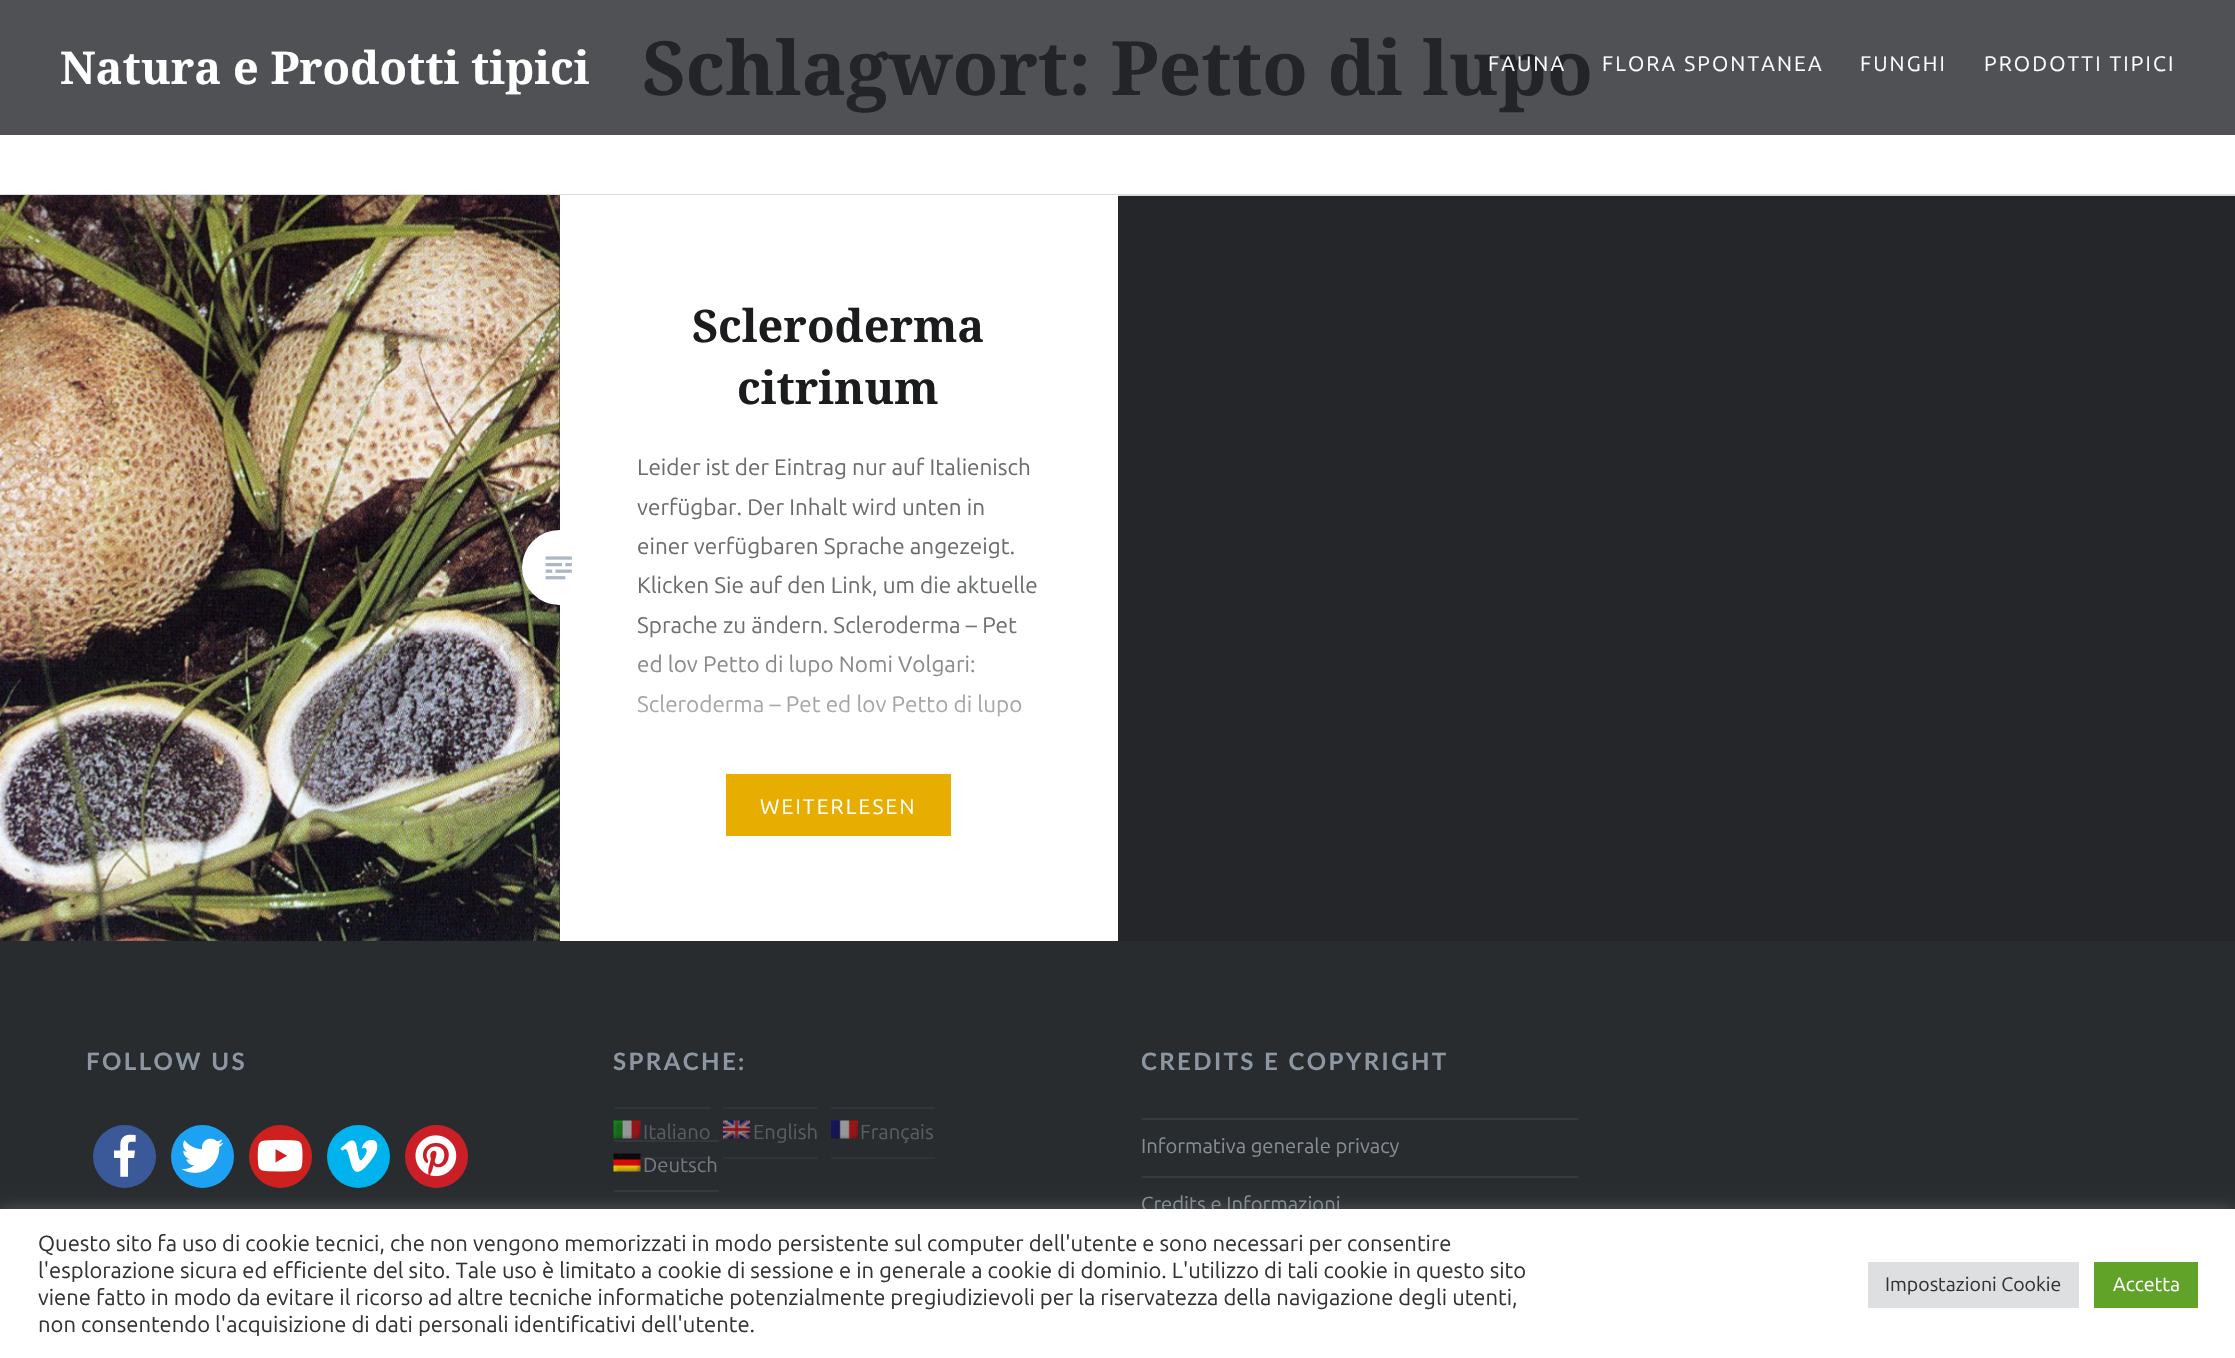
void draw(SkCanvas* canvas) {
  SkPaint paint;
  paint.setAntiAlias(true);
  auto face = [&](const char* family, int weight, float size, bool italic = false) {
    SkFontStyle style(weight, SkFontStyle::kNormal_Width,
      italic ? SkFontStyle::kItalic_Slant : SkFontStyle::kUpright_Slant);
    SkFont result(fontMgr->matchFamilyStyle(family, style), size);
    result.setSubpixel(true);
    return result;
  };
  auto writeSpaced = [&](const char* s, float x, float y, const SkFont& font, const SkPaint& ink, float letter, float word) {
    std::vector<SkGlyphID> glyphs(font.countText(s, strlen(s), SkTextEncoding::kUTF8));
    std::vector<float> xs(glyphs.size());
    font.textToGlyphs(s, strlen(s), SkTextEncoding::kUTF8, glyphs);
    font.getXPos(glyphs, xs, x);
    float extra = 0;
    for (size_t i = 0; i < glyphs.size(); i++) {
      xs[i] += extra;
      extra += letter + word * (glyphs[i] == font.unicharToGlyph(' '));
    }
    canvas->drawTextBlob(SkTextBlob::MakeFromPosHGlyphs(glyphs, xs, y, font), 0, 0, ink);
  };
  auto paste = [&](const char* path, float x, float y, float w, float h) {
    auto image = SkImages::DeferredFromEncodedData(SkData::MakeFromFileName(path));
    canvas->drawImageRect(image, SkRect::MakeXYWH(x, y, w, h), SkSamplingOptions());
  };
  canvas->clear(0xff505154);
  {
    const struct { float x, y, w, h; SkColor color; } items[] = {
      {1118, 196, 1117, 745, 0xff242629},
      {0, 135, 2235, 59, 0xffffffff},
      {0, 194, 2235, 2, 0xffd9dfe5},
      {560, 195, 558, 746, 0xffffffff},
      {0, 195, 560, 746, 0xff242629},
    };
    for (auto [x, y, w, h, color] : items) {
      paint.setColor(color);
      canvas->drawRect(SkRect::MakeXYWH(x, y, w, h), paint);
    }
  }
  paste("img/1.png", 0, 195, 560, 746);
  paint.setColor(0xffffffff);
  canvas->drawCircle(559.5f, 567.5f, 37.5f, paint);
  paint.setColor(0xffe7ae01);
  canvas->drawRect(SkRect::MakeXYWH(726, 774, 225, 62), paint);
  paste("img/2.png", 545, 556, 27, 24);
  paint.setColor(0xff292c2f);
  canvas->drawRect(SkRect::MakeXYWH(0, 941, 2235, 268), paint);
  paint.setColor(0xff3b5998);
  canvas->drawCircle(124.5f, 1156.5f, 31.5f, paint);
  paste("img/3.png", 114, 1134, 22, 43);
  paint.setColor(0xff1da1f2);
  canvas->drawCircle(202.5f, 1156.5f, 31.5f, paint);
  paste("img/4.png", 181, 1138, 43, 35);
  paint.setColor(0xffcd201f);
  canvas->drawCircle(280.5f, 1156.5f, 31.5f, paint);
  paste("img/5.png", 257, 1140, 46, 32);
  paint.setColor(0xff00b3ec);
  canvas->drawCircle(358.5f, 1156.5f, 31.5f, paint);
  paste("img/6.png", 340, 1140, 38, 32);
  paint.setColor(0xffcb1f27);
  canvas->drawCircle(436.5f, 1156.5f, 31.5f, paint);
  paste("img/7.png", 415, 1135, 42, 42);
  paste("img/8.png", 613, 1120, 28, 19);
  paint.setColor(0xff303438);
  canvas->drawRect(SkRect::MakeXYWH(614, 1107, 97, 2), paint);
  canvas->drawRect(SkRect::MakeXYWH(614, 1157, 97, 2), paint);
  paste("img/9.png", 723, 1120, 27, 19);
  canvas->drawRect(SkRect::MakeXYWH(723, 1107, 95, 2), paint);
  canvas->drawRect(SkRect::MakeXYWH(723, 1157, 95, 2), paint);
  paste("img/10.png", 831, 1120, 27, 19);
  canvas->drawRect(SkRect::MakeXYWH(831, 1107, 104, 2), paint);
  canvas->drawRect(SkRect::MakeXYWH(831, 1157, 104, 2), paint);
  paste("img/11.png", 613, 1153, 28, 19);
  {
    const struct { float x, y, w, h; SkColor color; } items[] = {
      {614, 1140, 105, 2, 0xff33383d},
      {614, 1190, 105, 2, 0xff33383d},
      {1142, 1118, 436, 2, 0xff363b40},
      {1142, 1176, 436, 2, 0xff363b40},
    };
    for (auto [x, y, w, h, color] : items) {
      paint.setColor(color);
      canvas->drawRect(SkRect::MakeXYWH(x, y, w, h), paint);
    }
  }
  paint.setColor(0x4dacabab);
  paint.setMaskFilter(SkMaskFilter::MakeBlur(kNormal_SkBlurStyle, 7.5f));
  canvas->drawRect(SkRect::MakeXYWH(0, 1208, 2235, 150), paint);
  paint.setMaskFilter(nullptr);
  auto f0 = face("Noto Serif", 700, 75);
  paint.setColor(0xff222427);
  canvas->drawString("Schlagwort: Petto di lupo", 642, 95, f0, paint);
  auto f1 = face("Noto Serif", 700, 45);
  paint.setColor(0xff1a1c1e);
  canvas->drawString("Scleroderma", 692, 342, f1, paint);
  canvas->drawString("citrinum", 737, 404, f1, paint);
  auto f2 = face("Ubuntu", 400, 22.5f);
  paint.setColor(0xff6a6c6e);
  {
    const struct { const char* s; float x, y; } items[] = {
      {"Leider ist der Eintrag nur auf Italienisch", 637, 475},
      {"verfügbar. Der Inhalt wird unten in", 637, 515},
      {"einer verfügbaren Sprache angezeigt.", 637, 554},
      {"Klicken Sie auf den Link, um die aktuelle", 637, 593},
      {"Sprache zu ändern. Scleroderma – Pet", 637, 633},
      {"ed lov Petto di lupo Nomi Volgari:", 637, 672},
      {"Scleroderma – Pet ed lov Petto di lupo", 637, 712},
    };
    for (auto [s, x, y] : items) {
      canvas->drawString(s, x, y, f2, paint);
    }
  }
  auto f3 = face("Ubuntu", 400, 21);
  paint.setColor(0xffffffff);
  writeSpaced("WEITERLESEN", 760, 814, f3, paint, 2.1f, 0);
  {
    const SkColor colors[] = {0x00ffffff, 0xffffffff};
    const float stops[] = {0, 1};
    const SkPoint ends[] = {{839, 620}, {839, 836}};
    paint.setShader(SkGradientShader::MakeLinear(ends, colors, stops, 2, SkTileMode::kClamp));
    paint.setAlpha(255);
  }
  canvas->drawRect(SkRect::MakeXYWH(637, 625, 385, 92), paint);
  auto f4 = face("Lato", 700, 24);
  paint.setShader(nullptr);
  paint.setColor(0xff8c97a2);
  writeSpaced("FOLLOW US", 86, 1070, f4, paint, 2.4f, 0);
  writeSpaced("SPRACHE:", 613, 1070, f4, paint, 2.4f, 0);
  auto f5 = face("Ubuntu", 400, 20.25f);
  paint.setColor(0xff575d62);
  {
    const struct { const char* s; float x, y; } items[] = {
      {"Italiano", 643, 1139},
      {"English", 753, 1139},
      {"Français", 860, 1139},
    };
    for (auto [s, x, y] : items) {
      canvas->drawString(s, x, y, f5, paint);
    }
  }
  paint.setColor(0xff737a81);
  canvas->drawString("Deutsch", 643, 1172, f5, paint);
  paint.setColor(0xff8c97a2);
  writeSpaced("CREDITS E COPYRIGHT", 1141, 1070, f4, paint, 2.4f, 0);
  paint.setColor(0xff858d95);
  canvas->drawString("Informativa generale privacy", 1141, 1153, f5, paint);
  canvas->drawString("Credits e Informazioni", 1141, 1211, f5, paint);
  paint.setColor(0xffffffff);
  canvas->drawString("Natura e Prodotti tipici", 60, 84, f1, paint);
  {
    const struct { const char* s; float x, y; } items[] = {
      {"FAUNA", 1488, 71},
      {"FLORA SPONTANEA", 1602, 71},
      {"FUNGHI", 1860, 71},
      {"PRODOTTI TIPICI", 1984, 71},
    };
    for (auto [s, x, y] : items) {
      writeSpaced(s, x, y, f3, paint, 2.1f, 0);
    }
  }
  canvas->drawRect(SkRect::MakeXYWH(0, 1209, 2235, 149), paint);
  auto f6 = face("Ubuntu", 400, 22);
  paint.setColor(0xff333333);
  {
    const struct { const char* s; float x, y; } items[] = {
      {"Questo sito fa uso di cookie tecnici, che non vengono memorizzati in modo persistente sul computer dell'utente e sono necessari per consentire", 38, 1251},
      {"l'esplorazione sicura ed efficiente del sito. Tale uso è limitato a cookie di sessione e in generale a cookie di dominio. L'utilizzo di tali cookie in questo sito", 38, 1278},
      {"viene fatto in modo da evitare il ricorso ad altre tecniche informatiche potenzialmente pregiudizievoli per la riservatezza della navigazione degli utenti,", 38, 1305},
      {"non consentendo l'acquisizione di dati personali identificativi dell'utente.", 38, 1332},
    };
    for (auto [s, x, y] : items) {
      canvas->drawString(s, x, y, f6, paint);
    }
  }
  paint.setColor(0xffdedfe0);
  canvas->drawRect(SkRect::MakeXYWH(1868, 1262, 211, 46), paint);
  auto f7 = face("Ubuntu", 400, 19.5f);
  paint.setColor(0xff333333);
  canvas->drawString("Impostazioni Cookie", 1885, 1291, f7, paint);
  paint.setColor(0xff61a229);
  canvas->drawRect(SkRect::MakeXYWH(2094, 1262, 104, 46), paint);
  paint.setColor(0xffffffff);
  canvas->drawString("Accetta", 2113, 1291, f7, paint);
}
